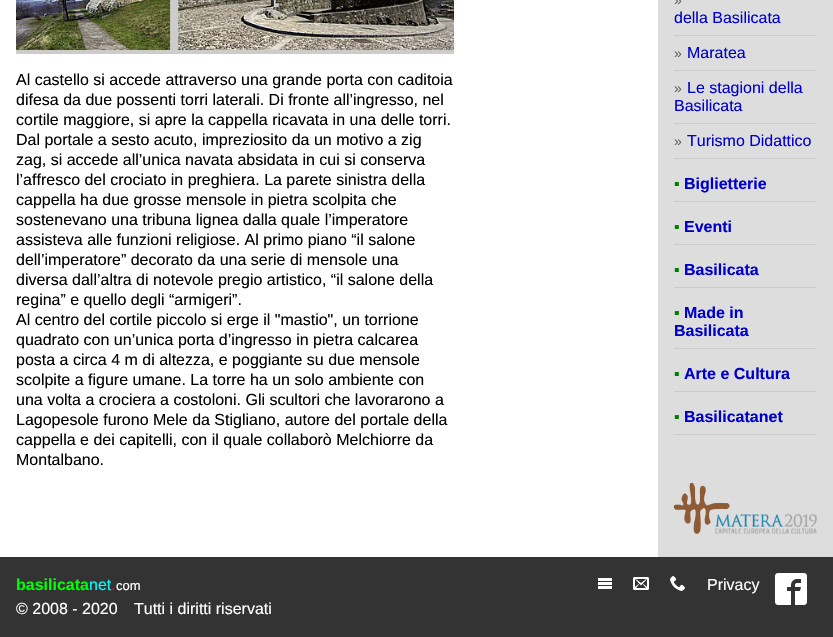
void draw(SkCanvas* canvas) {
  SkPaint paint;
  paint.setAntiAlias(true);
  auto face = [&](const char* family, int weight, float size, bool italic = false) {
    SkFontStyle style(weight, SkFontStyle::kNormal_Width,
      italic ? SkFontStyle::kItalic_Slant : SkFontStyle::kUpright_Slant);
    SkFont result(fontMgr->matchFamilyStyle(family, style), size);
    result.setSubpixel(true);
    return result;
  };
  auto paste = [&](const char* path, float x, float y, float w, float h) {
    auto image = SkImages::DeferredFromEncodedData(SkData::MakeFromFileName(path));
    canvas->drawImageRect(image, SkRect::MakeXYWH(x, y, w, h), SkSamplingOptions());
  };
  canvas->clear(0xffffffff);
  paste("img/1.png", 16, 0, 438, 54);
  {
    const struct { float x, y, w, h; SkColor color; } items[] = {
      {658, 0, 175, 557, 0xffdddddd},
      {674, 35, 143, 1, 0xffcccccc},
      {674, 70, 143, 1, 0xffcccccc},
      {674, 123, 143, 1, 0xffcccccc},
      {674, 158, 143, 1, 0xffcccccc},
      {674, 201, 143, 1, 0xffcccccc},
      {674, 244, 143, 1, 0xffcccccc},
      {674, 287, 143, 1, 0xffcccccc},
      {674, 348, 143, 1, 0xffcccccc},
      {674, 391, 143, 1, 0xffcccccc},
      {674, 434, 143, 1, 0xffcccccc},
    };
    for (auto [x, y, w, h, color] : items) {
      paint.setColor(color);
      canvas->drawRect(SkRect::MakeXYWH(x, y, w, h), paint);
    }
  }
  paste("img/2.png", 674, 483, 143, 51);
  paint.setColor(0xff333333);
  canvas->drawRect(SkRect::MakeXYWH(0, 557, 833, 80), paint);
  paste("img/3.png", 598, 578, 14, 11);
  paste("img/4.png", 633, 577, 16, 13);
  paste("img/5.png", 670, 576, 15, 15);
  paste("img/6.png", 775, 573, 32, 32);
  auto f0 = face("Liberation Sans", 400, 16);
  paint.setColor(0xff000000);
  {
    const struct { const char* s; float x, y; } items[] = {
      {"Al castello si accede attraverso una grande porta con caditoia", 16, 85},
      {"difesa da due possenti torri laterali. Di fronte all’ingresso, nel", 16, 105},
      {"cortile maggiore, si apre la cappella ricavata in una delle torri.", 16, 125},
      {"Dal portale a sesto acuto, impreziosito da un motivo a zig", 16, 145},
      {"zag, si accede all’unica navata absidata in cui si conserva", 16, 165},
      {"l’affresco del crociato in preghiera. La parete sinistra della", 16, 185},
      {"cappella ha due grosse mensole in pietra scolpita che", 16, 205},
      {"sostenevano una tribuna lignea dalla quale l’imperatore", 16, 225},
      {"assisteva alle funzioni religiose. Al primo piano “il salone", 16, 245},
      {"dell’imperatore” decorato da una serie di mensole una", 16, 265},
      {"diversa dall’altra di notevole pregio artistico, “il salone della", 16, 285},
      {"regina” e quello degli “armigeri”.", 16, 305},
      {"Al centro del cortile piccolo si erge il \"mastio\", un torrione", 16, 325},
      {"quadrato con un’unica porta d’ingresso in pietra calcarea", 16, 345},
      {"posta a circa 4 m di altezza, e poggiante su due mensole", 16, 365},
      {"scolpite a figure umane. La torre ha un solo ambiente con", 16, 385},
      {"una volta a crociera a costoloni. Gli scultori che lavorarono a", 16, 405},
      {"Lagopesole furono Mele da Stigliano, autore del portale della", 16, 425},
      {"cappella e dei capitelli, con il quale collaborò Melchiorre da", 16, 445},
      {"Montalbano.", 16, 465},
    };
    for (auto [s, x, y] : items) {
      canvas->drawString(s, x, y, f0, paint);
    }
  }
  auto f1 = face("Liberation Sans", 400, 14);
  paint.setColor(0xff666666);
  canvas->drawString("»", 674, 5, f1, paint);
  paint.setColor(0xff0000cc);
  canvas->drawString("della Basilicata", 674, 23, f0, paint);
  paint.setColor(0xff666666);
  canvas->drawString("»", 674, 58, f1, paint);
  paint.setColor(0xff0000cc);
  canvas->drawString("Maratea", 687, 58, f0, paint);
  paint.setColor(0xff666666);
  canvas->drawString("»", 674, 93, f1, paint);
  paint.setColor(0xff0000cc);
  canvas->drawString("Le stagioni della", 687, 93, f0, paint);
  canvas->drawString("Basilicata", 674, 111, f0, paint);
  paint.setColor(0xff666666);
  canvas->drawString("»", 674, 146, f1, paint);
  paint.setColor(0xff0000cc);
  canvas->drawString("Turismo Didattico", 687, 146, f0, paint);
  paint.setColor(0xff008000);
  canvas->drawString("▪", 674, 189, f0, paint);
  auto f2 = face("Liberation Sans", 700, 16);
  paint.setColor(0xff0000cc);
  canvas->drawString("Biglietterie", 684, 189, f2, paint);
  paint.setColor(0xff008000);
  canvas->drawString("▪", 674, 232, f0, paint);
  paint.setColor(0xff0000cc);
  canvas->drawString("Eventi", 684, 232, f2, paint);
  paint.setColor(0xff008000);
  canvas->drawString("▪", 674, 275, f0, paint);
  paint.setColor(0xff0000cc);
  canvas->drawString("Basilicata", 684, 275, f2, paint);
  paint.setColor(0xff008000);
  canvas->drawString("▪", 674, 318, f0, paint);
  paint.setColor(0xff0000cc);
  canvas->drawString("Made in", 684, 318, f2, paint);
  canvas->drawString("Basilicata", 674, 336, f2, paint);
  paint.setColor(0xff008000);
  canvas->drawString("▪", 674, 379, f0, paint);
  paint.setColor(0xff0000cc);
  canvas->drawString("Arte e Cultura", 684, 379, f2, paint);
  paint.setColor(0xff008000);
  canvas->drawString("▪", 674, 422, f0, paint);
  paint.setColor(0xff0000cc);
  canvas->drawString("Basilicatanet", 684, 422, f2, paint);
  paint.setColor(0xff00ff00);
  canvas->drawString("basilicata", 16, 590, f2, paint);
  paint.setColor(0xff00ffff);
  canvas->drawString("net", 89, 590, f0, paint);
  paint.setColor(0xffff0000);
  canvas->drawString(".", 111, 590, f0, paint);
  auto f3 = face("Liberation Sans", 400, 13);
  paint.setColor(0xffffffff);
  canvas->drawString("com", 116, 590, f3, paint);
  {
    const struct { const char* s; float x, y; } items[] = {
      {"© 2008 - 2020", 16, 614},
      {"Tutti i diritti riservati", 134, 614},
      {"Privacy", 707, 590},
    };
    for (auto [s, x, y] : items) {
      canvas->drawString(s, x, y, f0, paint);
    }
  }
}
